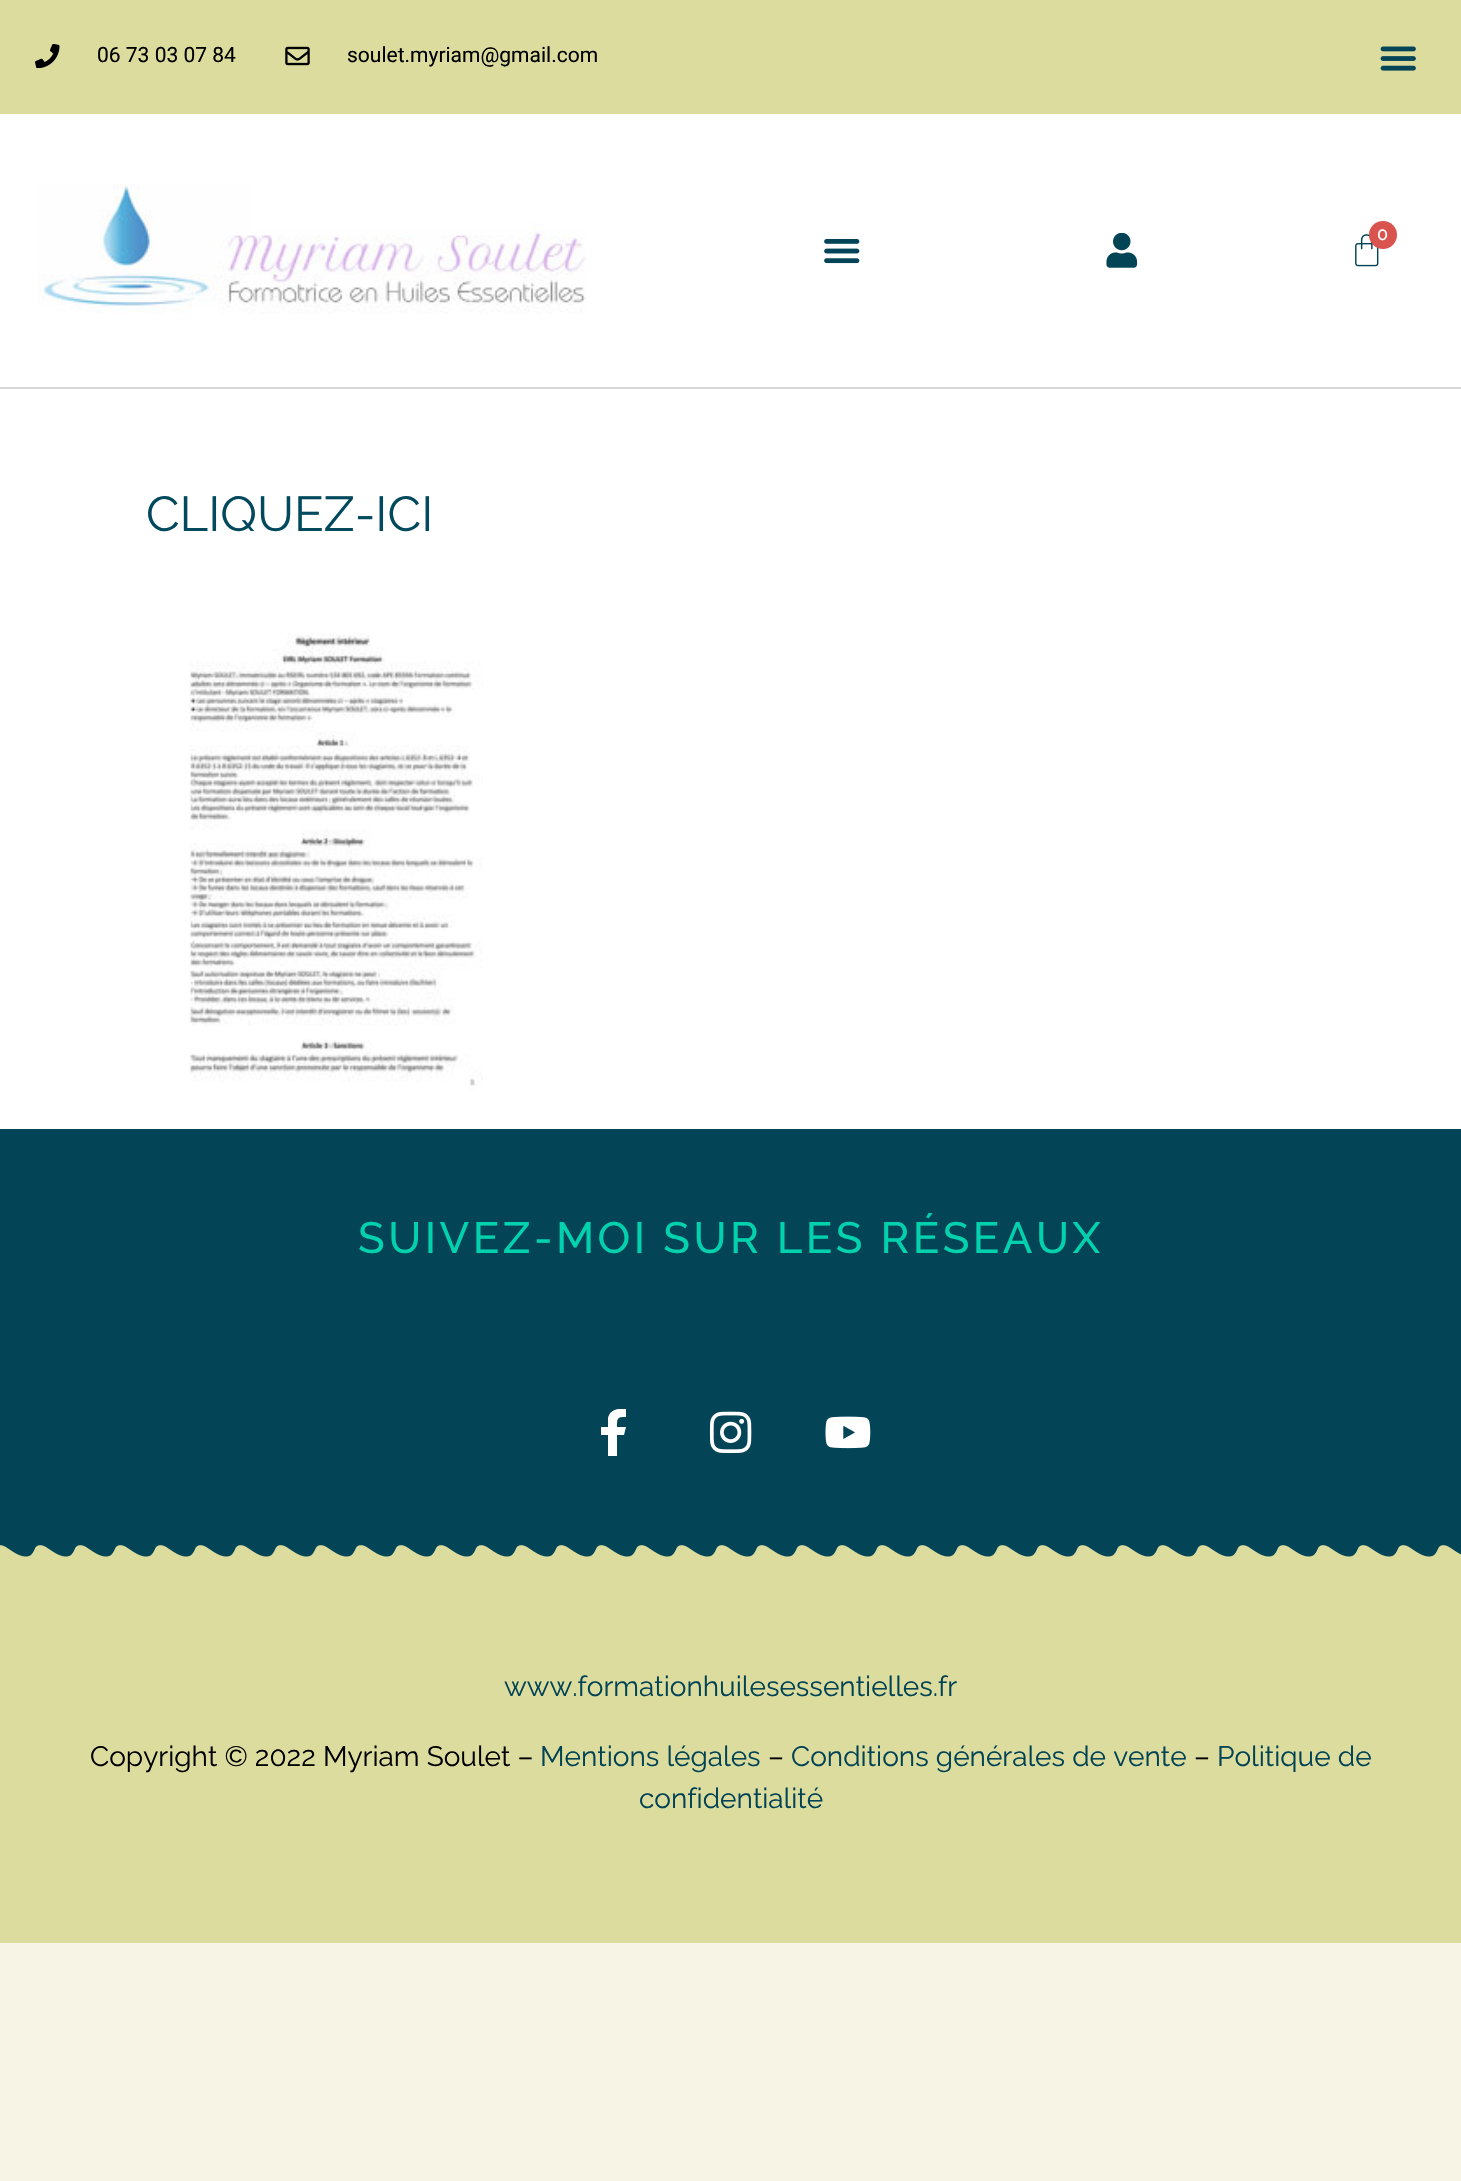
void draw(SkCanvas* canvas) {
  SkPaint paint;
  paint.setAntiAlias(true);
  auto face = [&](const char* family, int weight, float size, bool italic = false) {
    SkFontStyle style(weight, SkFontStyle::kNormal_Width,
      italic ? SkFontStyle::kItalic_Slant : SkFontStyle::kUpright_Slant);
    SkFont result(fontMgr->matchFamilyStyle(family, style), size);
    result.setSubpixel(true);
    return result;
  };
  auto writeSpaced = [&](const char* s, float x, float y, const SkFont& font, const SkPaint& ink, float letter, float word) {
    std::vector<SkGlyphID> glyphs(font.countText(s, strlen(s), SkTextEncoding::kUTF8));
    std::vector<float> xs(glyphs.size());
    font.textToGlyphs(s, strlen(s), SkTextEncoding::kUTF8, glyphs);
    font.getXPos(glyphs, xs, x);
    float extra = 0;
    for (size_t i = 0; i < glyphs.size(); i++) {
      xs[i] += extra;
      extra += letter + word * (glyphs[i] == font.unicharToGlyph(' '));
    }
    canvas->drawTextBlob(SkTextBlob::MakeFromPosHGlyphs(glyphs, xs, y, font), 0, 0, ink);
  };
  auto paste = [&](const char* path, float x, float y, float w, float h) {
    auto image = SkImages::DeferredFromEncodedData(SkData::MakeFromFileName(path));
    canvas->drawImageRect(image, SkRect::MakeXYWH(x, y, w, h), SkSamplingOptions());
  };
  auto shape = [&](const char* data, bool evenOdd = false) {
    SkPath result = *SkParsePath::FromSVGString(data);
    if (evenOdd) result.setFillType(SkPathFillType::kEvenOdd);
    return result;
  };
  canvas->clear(0xfff7f4e5);
  paint.setColor(0xffdbdc9d);
  canvas->drawRect(SkRect::MakeXYWH(0, 0, 1461, 114), paint);
  paste("img/1.png", 35, 44, 25, 24);
  paste("img/2.png", 285, 46, 25, 20);
  paste("img/3.png", 1380, 46, 36, 25);
  paint.setColor(0xffffffff);
  canvas->drawRect(SkRect::MakeXYWH(0, 114, 1461, 273), paint);
  paint.setColor(0xffd8d8d8);
  canvas->drawRect(SkRect::MakeXYWH(0, 387, 1461, 2), paint);
  paste("img/4.png", 37, 184, 550, 130);
  paste("img/5.png", 824, 239, 36, 25);
  paste("img/6.png", 1106, 233, 32, 35);
  paste("img/7.png", 1355, 234, 24, 33);
  paint.setColor(0xffd9534f);
  canvas->drawCircle(1383, 235, 14, paint);
  paint.setColor(0xffffffff);
  canvas->drawRect(SkRect::MakeXYWH(0, 389, 1461, 740), paint);
  paste("img/8.png", 189, 633, 294, 457);
  paint.setColor(0xff034457);
  canvas->drawRect(SkRect::MakeXYWH(0, 1129, 1461, 415), paint);
  canvas->save();
  canvas->clipRect(SkRect::MakeXYWH(590, 1409, 47, 47));
  paint.setColor(0xffffffff);
  canvas->drawPath(shape("M624 1435L626 1427H617C617 1418 617 1417 626 1417V1409C619 1408 610 1409 608 1418V1427H601V1435H608V1456H617V1435Z"), paint);
  canvas->restore();
  paste("img/9.png", 709, 1411, 43, 43);
  paste("img/10.png", 825, 1416, 46, 33);
  paint.setColor(0xffdbdc9d);
  canvas->drawRect(SkRect::MakeXYWH(0, 1545, 1461, 398), paint);
  paste("img/11.png", 0, 1544, 1461, 13);
  auto f0 = face("Roboto", 400, 21);
  paint.setColor(0xff000000);
  canvas->drawString("06 73 03 07 84", 97, 62, f0, paint);
  canvas->drawString("soulet.myriam@gmail.com", 347, 62, f0, paint);
  auto f1 = face("Raleway", 500, 18);
  paint.setColor(0xffffffff);
  canvas->drawString("0", 1377, 240, f1, paint);
  auto f2 = face("Raleway", 400, 49);
  paint.setColor(0xff02495d);
  canvas->drawString("CLIQUEZ-ICI", 146, 531, f2, paint);
  auto f3 = face("Raleway", 500, 43.75f);
  paint.setColor(0xff02d1ae);
  writeSpaced("SUIVEZ-MOI SUR LES RÉSEAUX", 358, 1253, f3, paint, 3.5f, 0);
  auto f4 = face("Raleway", 400, 28);
  paint.setColor(0xff014355);
  canvas->drawString("www.formationhuilesessentielles.fr", 504, 1696, f4, paint);
  paint.setColor(0xff000000);
  canvas->drawString("Copyright © 2022 Myriam Soulet –", 90, 1766, f4, paint);
  paint.setColor(0xff014355);
  canvas->drawString("Mentions légales", 540, 1766, f4, paint);
  paint.setColor(0xff000000);
  canvas->drawString("–", 768, 1766, f4, paint);
  paint.setColor(0xff014355);
  canvas->drawString("Conditions générales de vente", 791, 1766, f4, paint);
  paint.setColor(0xff000000);
  canvas->drawString("–", 1194, 1766, f4, paint);
  paint.setColor(0xff014355);
  canvas->drawString("Politique de", 1217, 1766, f4, paint);
  canvas->drawString("confidentialité", 639, 1808, f4, paint);
}
